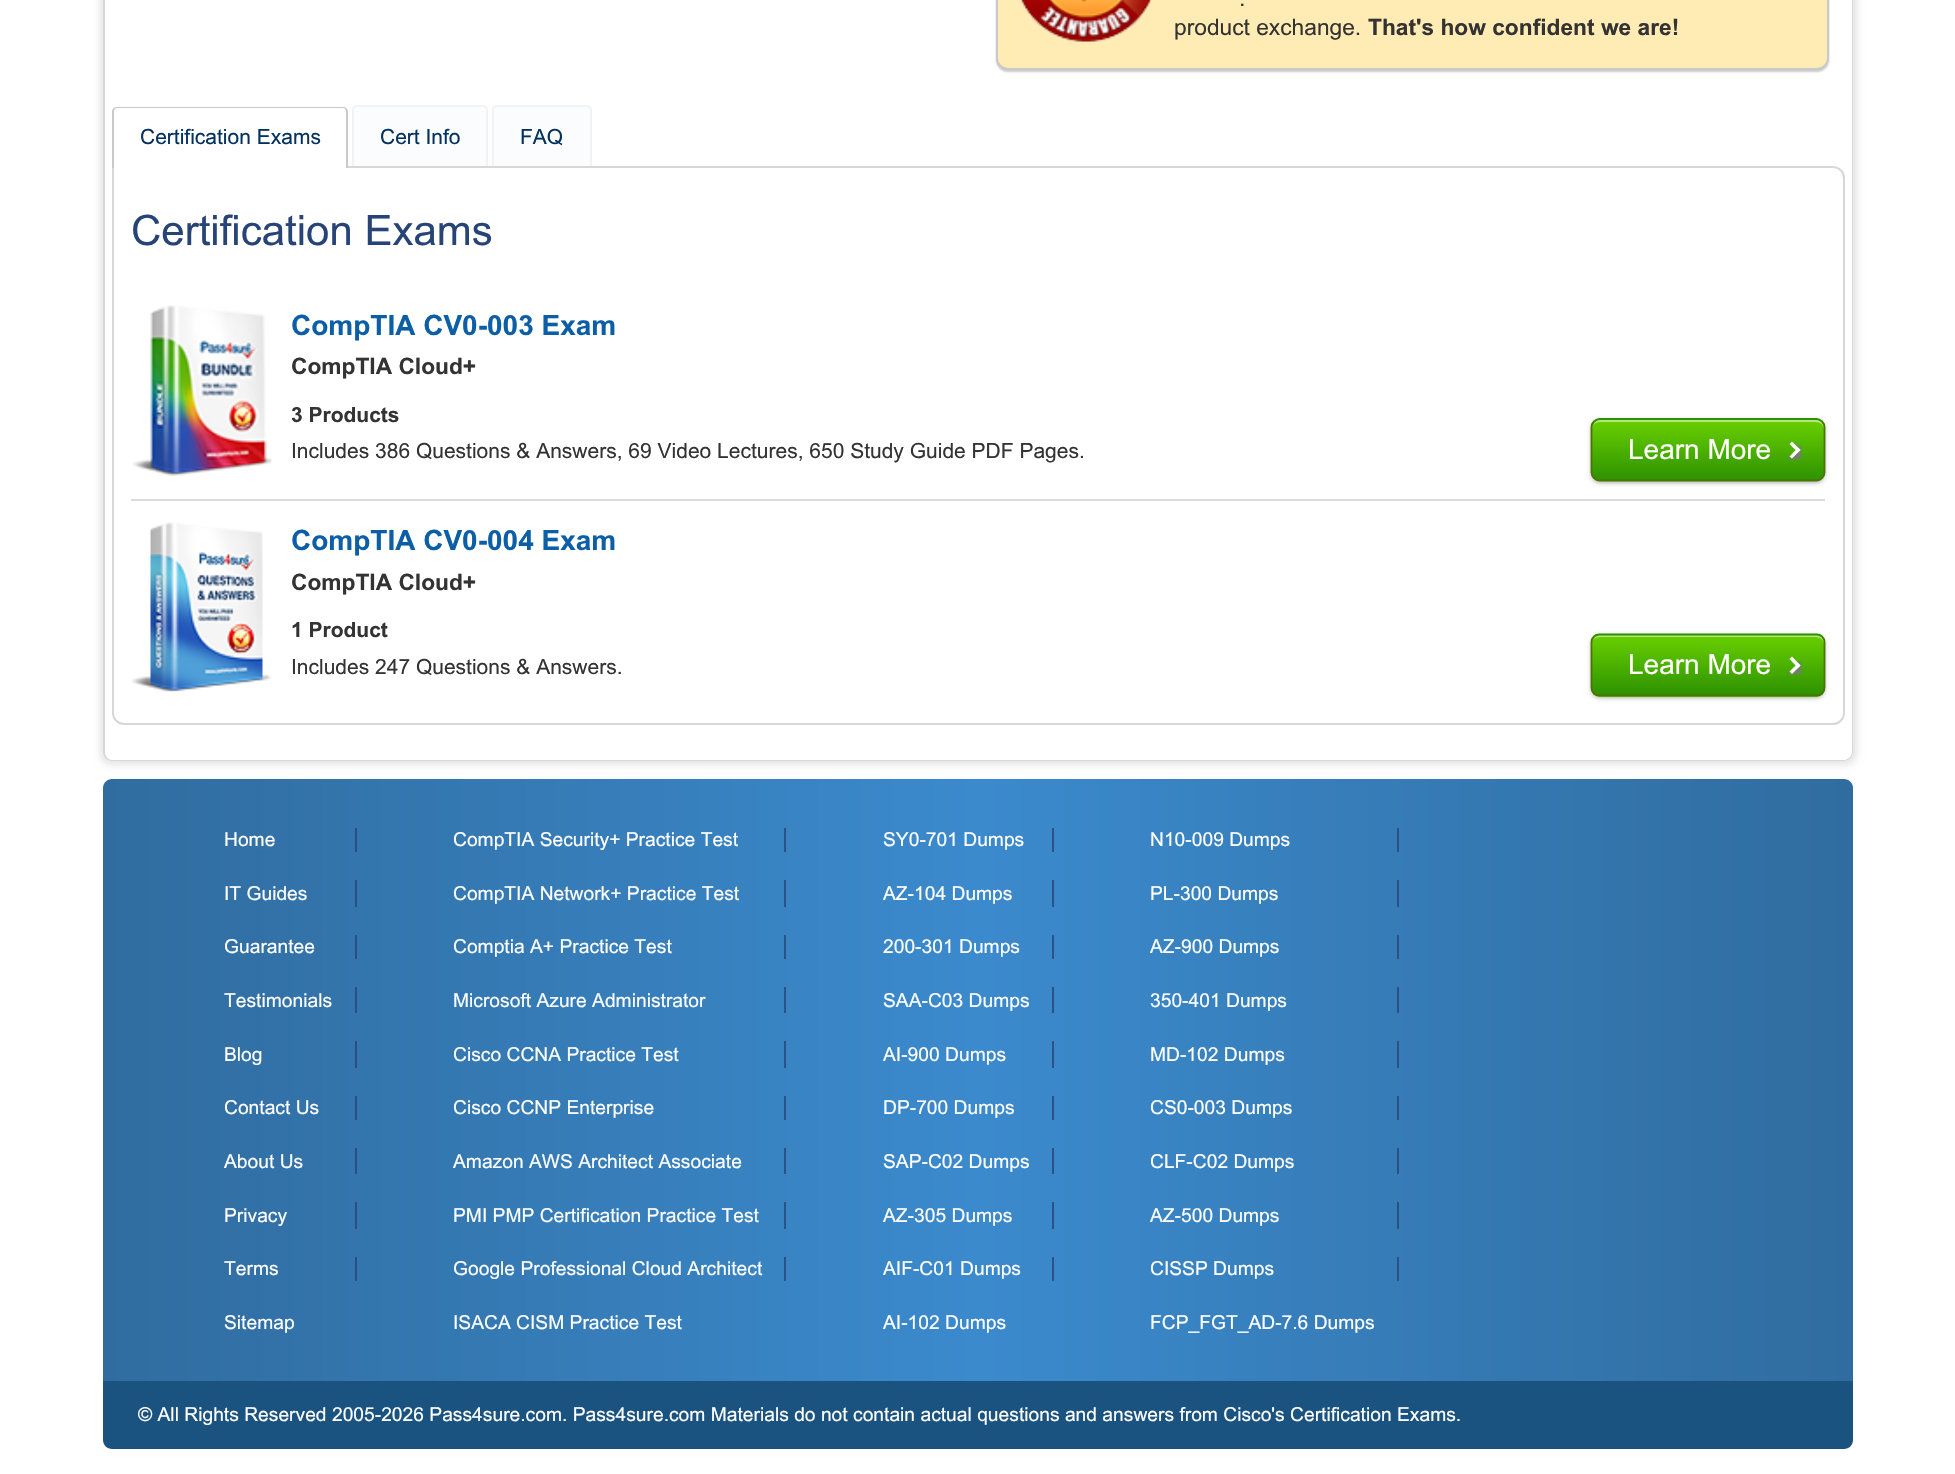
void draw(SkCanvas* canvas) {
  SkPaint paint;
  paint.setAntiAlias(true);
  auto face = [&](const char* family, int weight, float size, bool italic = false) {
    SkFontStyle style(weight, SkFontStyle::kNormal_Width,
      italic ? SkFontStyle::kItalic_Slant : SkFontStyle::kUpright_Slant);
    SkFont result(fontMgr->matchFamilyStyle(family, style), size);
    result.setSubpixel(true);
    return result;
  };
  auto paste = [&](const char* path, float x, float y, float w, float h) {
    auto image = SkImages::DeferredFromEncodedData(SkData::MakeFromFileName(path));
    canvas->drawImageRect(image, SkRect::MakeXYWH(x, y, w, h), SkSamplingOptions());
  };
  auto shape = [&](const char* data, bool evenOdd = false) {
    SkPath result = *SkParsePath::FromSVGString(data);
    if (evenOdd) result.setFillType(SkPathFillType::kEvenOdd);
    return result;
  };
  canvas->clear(0xffffffff);
  paint.setColor(0x1a000000);
  paint.setMaskFilter(SkMaskFilter::MakeBlur(kNormal_SkBlurStyle, 3.5f));
  canvas->drawRoundRect(SkRect::MakeXYWH(100, -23, 1757, 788), 12, 12, paint);
  paint.setMaskFilter(nullptr);
  paint.setColor(0xffffffff);
  canvas->drawPath(shape("M103-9H1853V752C1853 757 1849 761 1844 761H112C107 761 103 757 103 752Z"), paint);
  paint.setColor(0xffd7d7d7);
  canvas->drawPath(shape("M103-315H1853V752C1853 757 1849 761 1844 761H112C107 761 103 757 103 752ZM105-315H1852V752C1852 756 1848 760 1844 760H112C108 760 105 756 105 752Z", true), paint);
  paint.setColor(0x33000000);
  paint.setMaskFilter(SkMaskFilter::MakeBlur(kNormal_SkBlurStyle, 1));
  canvas->drawRoundRect(SkRect::MakeXYWH(996, -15, 833, 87), 12, 12, paint);
  paint.setMaskFilter(nullptr);
  paint.setColor(0xffffecb4);
  canvas->drawRoundRect(SkRect::MakeXYWH(997, -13, 831, 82), 11, 11, paint);
  paint.setStroke(true);
  paint.setStrokeWidth(2);
  paint.setColor(0xffc9c9c9);
  canvas->drawRoundRect(SkRect::MakeXYWH(997, -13, 831, 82), 11, 11, paint);
  paste("img/1.png", 1021, 0, 131, 42);
  paint.setColor(0xffd7d7d7);
  canvas->drawPath(shape("M113 167H1833C1839 167 1844 172 1844 178V713C1844 719 1839 724 1833 724H124C118 724 113 719 113 713Z"), paint);
  paint.setStroke(false);
  paint.setColor(0xffffffff);
  canvas->drawPath(shape("M117 107H343C346 107 348 109 348 112V168H112V112C112 109 114 107 117 107Z"), paint);
  paint.setColor(0xffc9c9c9);
  canvas->drawPath(shape("M117 107H343C346 107 348 109 348 112V168H112V112C112 109 114 107 117 107ZM117 108H343C345 108 346 110 346 112V168H114V112C114 110 115 108 117 108Z", true), paint);
  paint.setColor(0xfffafcfe);
  canvas->drawPath(shape("M357 105H483C486 105 488 107 488 110V166H352V110C352 107 354 105 357 105Z"), paint);
  paint.setColor(0xfff2f3f4);
  canvas->drawPath(shape("M357 105H483C486 105 488 107 488 110V166H352V110C352 107 354 105 357 105ZM357 107H483C485 107 486 108 486 110V166H354V110C354 108 355 107 357 107Z", true), paint);
  paint.setColor(0xfffafcfe);
  canvas->drawPath(shape("M497 105H587C590 105 592 107 592 110V166H492V110C492 107 494 105 497 105Z"), paint);
  paint.setColor(0xfff2f3f4);
  canvas->drawPath(shape("M497 105H586C589 105 592 107 592 110V166H492V110C492 107 494 105 497 105ZM497 107H586C588 107 590 108 590 110V166H494V110C494 108 495 107 497 107Z", true), paint);
  paint.setColor(0xffdcdcdc);
  canvas->drawRect(SkRect::MakeXYWH(131, 499, 1694, 2), paint);
  paste("img/2.png", 132, 305, 140, 171);
  paint.setColor(0x4d000000);
  paint.setMaskFilter(SkMaskFilter::MakeBlur(kNormal_SkBlurStyle, 2));
  canvas->drawRoundRect(SkRect::MakeXYWH(1591, 420, 234, 63), 9, 9, paint);
  paint.setMaskFilter(nullptr);
  canvas->save();
  canvas->clipPath(shape("M1600 418H1816C1821 418 1825 422 1825 427V472C1825 477 1821 481 1816 481H1600C1595 481 1591 477 1591 472V427C1591 422 1595 418 1600 418Z"), true);
  {
    const SkColor colors[] = {0xff6ad000, 0xff2d9200};
    const float stops[] = {0, 1};
    const SkPoint ends[] = {{1708, 420}, {1708, 480}};
    paint.setShader(SkGradientShader::MakeLinear(ends, colors, stops, 2, SkTileMode::kClamp));
    paint.setAlpha(255);
  }
  canvas->drawRect(SkRect::MakeXYWH(1591, 420, 234, 60), paint);
  canvas->restore();
  paint.setShader(nullptr);
  paint.setColor(0x80ffffff);
  canvas->drawPath(shape("M1600 422H1816C1820 422 1824 425 1824 429V427C1824 423 1821 420 1817 420H1600C1597 420 1594 422 1593 425C1595 423 1597 422 1600 422Z"), paint);
  paint.setStroke(true);
  paint.setStrokeWidth(1.8f);
  paint.setColor(0xff2d9200);
  canvas->drawPath(shape("M1594 421.5C1595.5 420 1597.5 419 1599.5 419H1816.5C1818.5 419 1820.5 420 1822 421.5"), paint);
  paint.setColor(0xff4a7600);
  canvas->drawPath(shape("M1822 421.5C1823.5 423 1824.5 425 1824.5 427V472.5C1824.5 474.5 1823.5 476.5 1822 478C1820.5 479.5 1818.5 480.5 1816.5 480.5H1599.5C1597.5 480.5 1595.5 479.5 1594 478C1592.5 476.5 1591.5 474.5 1591.5 472.5V427C1591.5 425 1592.5 423 1594 421.5"), paint);
  canvas->save();
  canvas->clipPath(shape("M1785 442H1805V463H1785ZM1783.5 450L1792 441.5L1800.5 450L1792 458.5Z", true), true);
  paint.setStroke(false);
  paint.setColor(0xff787878);
  paint.setMaskFilter(SkMaskFilter::MakeBlur(kNormal_SkBlurStyle, 1));
  canvas->drawRect(SkRect::MakeXYWH(1789, 446, 12, 13), paint);
  paint.setMaskFilter(nullptr);
  canvas->restore();
  paint.setColor(0xffffffff);
  canvas->drawPath(shape("M1789.5 444L1792 441.5L1800.5 450L1798 452.5Z"), paint);
  canvas->drawPath(shape("M1789.5 456.5L1798 447.5L1800.5 450L1792 458.5Z"), paint);
  paste("img/3.png", 131, 522, 141, 170);
  paint.setColor(0x4d000000);
  paint.setMaskFilter(SkMaskFilter::MakeBlur(kNormal_SkBlurStyle, 2));
  canvas->drawRoundRect(SkRect::MakeXYWH(1591, 635, 234, 63), 9, 9, paint);
  paint.setMaskFilter(nullptr);
  canvas->save();
  canvas->clipPath(shape("M1600 634H1816C1821 634 1825 638 1825 643V688C1825 693 1821 697 1816 697H1600C1595 697 1591 693 1591 688V643C1591 638 1595 634 1600 634Z"), true);
  {
    const SkColor colors[] = {0xff6ad000, 0xff2d9200};
    const float stops[] = {0, 1};
    const SkPoint ends[] = {{1708, 635}, {1708, 695}};
    paint.setShader(SkGradientShader::MakeLinear(ends, colors, stops, 2, SkTileMode::kClamp));
    paint.setAlpha(255);
  }
  canvas->drawRect(SkRect::MakeXYWH(1591, 635, 234, 60), paint);
  {
    const SkColor colors[] = {0xff6ad000, 0xff2d9200};
    const float stops[] = {0, 1};
    const SkPoint ends[] = {{1708, 695}, {1708, 754}};
    paint.setShader(SkGradientShader::MakeLinear(ends, colors, stops, 2, SkTileMode::kClamp));
    paint.setAlpha(255);
  }
  canvas->drawRect(SkRect::MakeXYWH(1591, 695, 234, 2), paint);
  canvas->restore();
  paint.setShader(nullptr);
  paint.setColor(0x80ffffff);
  canvas->drawPath(shape("M1600 637H1816C1820 637 1824 640 1824 644V642C1824 638 1821 635 1817 635H1600C1597 635 1594 637 1593 640C1595 638 1597 637 1600 637Z"), paint);
  paint.setStroke(true);
  paint.setColor(0xff2d9200);
  canvas->drawPath(shape("M1594 636.5C1595.5 635 1597.5 634.5 1599.5 634.5H1816.5C1818.5 634.5 1820.5 635 1822 636.5"), paint);
  paint.setColor(0xff4a7600);
  canvas->drawPath(shape("M1822 636.5C1823.5 638 1824.5 640 1824.5 642V688C1824.5 690 1823.5 692 1822 693.5C1820.5 695 1818.5 695.5 1816.5 695.5H1599.5C1597.5 695.5 1595.5 695 1594 693.5C1592.5 692 1591.5 690 1591.5 688V642C1591.5 640 1592.5 638 1594 636.5"), paint);
  canvas->save();
  canvas->clipPath(shape("M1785 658H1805V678H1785ZM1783.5 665.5L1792 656.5L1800.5 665.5L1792 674Z", true), true);
  paint.setStroke(false);
  paint.setColor(0xff787878);
  paint.setMaskFilter(SkMaskFilter::MakeBlur(kNormal_SkBlurStyle, 1));
  canvas->drawRect(SkRect::MakeXYWH(1789, 662, 12, 12), paint);
  paint.setMaskFilter(nullptr);
  canvas->restore();
  paint.setColor(0xffffffff);
  canvas->drawPath(shape("M1789.5 659L1792 656.5L1800.5 665.5L1798 668Z"), paint);
  canvas->drawPath(shape("M1789.5 671.5L1798 663L1800.5 665.5L1792 674Z"), paint);
  {
    const SkColor colors[] = {0xff306c9f, 0xff3b8acd, 0xff306c9f};
    const float stops[] = {0, 0.5f, 1};
    const SkPoint ends[] = {{103, 1080}, {1853, 1080}};
    paint.setShader(SkGradientShader::MakeLinear(ends, colors, stops, 3, SkTileMode::kClamp));
    paint.setAlpha(255);
  }
  canvas->drawPath(shape("M112 779H1844C1849 779 1853 783 1853 788V1381H103V788C103 783 107 779 112 779Z"), paint);
  paint.setShader(nullptr);
  {
    const struct { float x, y, w, h; SkColor color; } items[] = {
      {355, 828, 2, 24, 0xff2a4f84},
      {355, 880, 2, 27, 0xff2a4f84},
      {355, 935, 2, 24, 0xff2a4f84},
      {355, 987, 2, 26, 0xff2a4f84},
      {355, 1041, 2, 27, 0xff2a4f84},
      {355, 1096, 2, 24, 0xff2a4f84},
      {355, 1148, 2, 26, 0xff2a4f84},
      {355, 1202, 2, 27, 0xff2a4f84},
      {355, 1257, 2, 24, 0xff2a4f84},
      {784, 828, 2, 24, 0xff2b5189},
      {784, 880, 2, 27, 0xff2b5189},
      {784, 935, 2, 24, 0xff2b5189},
      {784, 987, 2, 26, 0xff2b5189},
      {784, 1041, 2, 27, 0xff2b5189},
      {784, 1096, 2, 24, 0xff2b5189},
      {784, 1148, 2, 26, 0xff2b5189},
      {784, 1202, 2, 27, 0xff2b5189},
      {784, 1257, 2, 24, 0xff2b5189},
      {1052, 828, 2, 24, 0xff2c528a},
      {1052, 880, 2, 27, 0xff2c528a},
      {1052, 935, 2, 24, 0xff2c528a},
      {1052, 987, 2, 26, 0xff2c528a},
      {1052, 1041, 2, 27, 0xff2c528a},
      {1052, 1096, 2, 24, 0xff2c528a},
      {1052, 1148, 2, 26, 0xff2c528a},
      {1052, 1202, 2, 27, 0xff2c528a},
      {1052, 1257, 2, 24, 0xff2c528a},
      {1397, 828, 2, 24, 0xff2b5086},
      {1397, 880, 2, 27, 0xff2b5086},
      {1397, 935, 2, 24, 0xff2b5086},
      {1397, 987, 2, 26, 0xff2b5086},
      {1397, 1041, 2, 27, 0xff2b5086},
      {1397, 1096, 2, 24, 0xff2b5086},
      {1397, 1148, 2, 26, 0xff2b5086},
      {1397, 1202, 2, 27, 0xff2b5086},
      {1397, 1257, 2, 24, 0xff2b5086},
    };
    for (auto [x, y, w, h, color] : items) {
      paint.setColor(color);
      canvas->drawRect(SkRect::MakeXYWH(x, y, w, h), paint);
    }
  }
  paint.setColor(0xff1b5380);
  canvas->drawPath(shape("M103 1381H1853V1440C1853 1445 1849 1449 1844 1449H112C107 1449 103 1445 103 1440Z"), paint);
  auto f0 = face("Arial", 400, 22.75f);
  paint.setColor(0xff333333);
  canvas->drawString(".", 1239, 6, f0, paint);
  canvas->drawString("product exchange.", 1174, 35, f0, paint);
  auto f1 = face("Arial", 700, 22.75f);
  canvas->drawString("That's how confident we are!", 1368, 35, f1, paint);
  auto f2 = face("Arial", 400, 21);
  paint.setColor(0xff043260);
  {
    const struct { const char* s; float x, y; } items[] = {
      {"Certification Exams", 140, 144},
      {"Cert Info", 380, 144},
      {"FAQ", 520, 144},
    };
    for (auto [s, x, y] : items) {
      canvas->drawString(s, x, y, f2, paint);
    }
  }
  auto f3 = face("Arial", 400, 42);
  paint.setColor(0xff274479);
  canvas->drawString("Certification Exams", 131, 245, f3, paint);
  auto f4 = face("Arial", 700, 28);
  paint.setColor(0xff0c5fa6);
  canvas->drawString("CompTIA CV0-003 Exam", 291, 335, f4, paint);
  paint.setColor(0xff333333);
  canvas->drawString("CompTIA Cloud+", 291, 374, f1, paint);
  auto f5 = face("Arial", 700, 21);
  canvas->drawString("3 Products", 291, 422, f5, paint);
  canvas->drawString("Includes 386 Questions & Answers, 69 Video Lectures, 650 Study Guide PDF Pages.", 291, 458, f2, paint);
  auto f6 = face("Arial", 400, 28);
  paint.setColor(0xffffffff);
  canvas->drawString("Learn More", 1628, 459, f6, paint);
  paint.setColor(0xff0c5fa6);
  canvas->drawString("CompTIA CV0-004 Exam", 291, 550, f4, paint);
  paint.setColor(0xff333333);
  canvas->drawString("CompTIA Cloud+", 291, 590, f1, paint);
  canvas->drawString("1 Product", 291, 637, f5, paint);
  canvas->drawString("Includes 247 Questions & Answers.", 291, 674, f2, paint);
  paint.setColor(0xffffffff);
  canvas->drawString("Learn More", 1628, 674, f6, paint);
  auto f7 = face("Arial", 400, 19.25f);
  {
    const struct { const char* s; float x, y; } items[] = {
      {"Home", 224, 846},
      {"IT Guides", 224, 900},
      {"Guarantee", 224, 953},
      {"Testimonials", 224, 1007},
      {"Blog", 224, 1061},
      {"Contact Us", 224, 1114},
      {"About Us", 224, 1168},
      {"Privacy", 224, 1222},
      {"Terms", 224, 1275},
      {"Sitemap", 224, 1329},
      {"CompTIA Security+ Practice Test", 453, 846},
      {"CompTIA Network+ Practice Test", 453, 900},
      {"Comptia A+ Practice Test", 453, 953},
      {"Microsoft Azure Administrator", 453, 1007},
      {"Cisco CCNA Practice Test", 453, 1061},
      {"Cisco CCNP Enterprise", 453, 1114},
      {"Amazon AWS Architect Associate", 453, 1168},
      {"PMI PMP Certification Practice Test", 453, 1222},
      {"Google Professional Cloud Architect", 453, 1275},
      {"ISACA CISM Practice Test", 453, 1329},
      {"SY0-701 Dumps", 883, 846},
      {"AZ-104 Dumps", 883, 900},
      {"200-301 Dumps", 883, 953},
      {"SAA-C03 Dumps", 883, 1007},
      {"AI-900 Dumps", 883, 1061},
      {"DP-700 Dumps", 883, 1114},
      {"SAP-C02 Dumps", 883, 1168},
      {"AZ-305 Dumps", 883, 1222},
      {"AIF-C01 Dumps", 883, 1275},
      {"AI-102 Dumps", 883, 1329},
      {"N10-009 Dumps", 1150, 846},
      {"PL-300 Dumps", 1150, 900},
      {"AZ-900 Dumps", 1150, 953},
      {"350-401 Dumps", 1150, 1007},
      {"MD-102 Dumps", 1150, 1061},
      {"CS0-003 Dumps", 1150, 1114},
      {"CLF-C02 Dumps", 1150, 1168},
      {"AZ-500 Dumps", 1150, 1222},
      {"CISSP Dumps", 1150, 1275},
      {"FCP_FGT_AD-7.6 Dumps", 1150, 1329},
      {"© All Rights Reserved 2005-2026 Pass4sure.com. Pass4sure.com Materials do not contain actual questions and answers from Cisco's Certification Exams.", 138, 1421},
    };
    for (auto [s, x, y] : items) {
      canvas->drawString(s, x, y, f7, paint);
    }
  }
}
